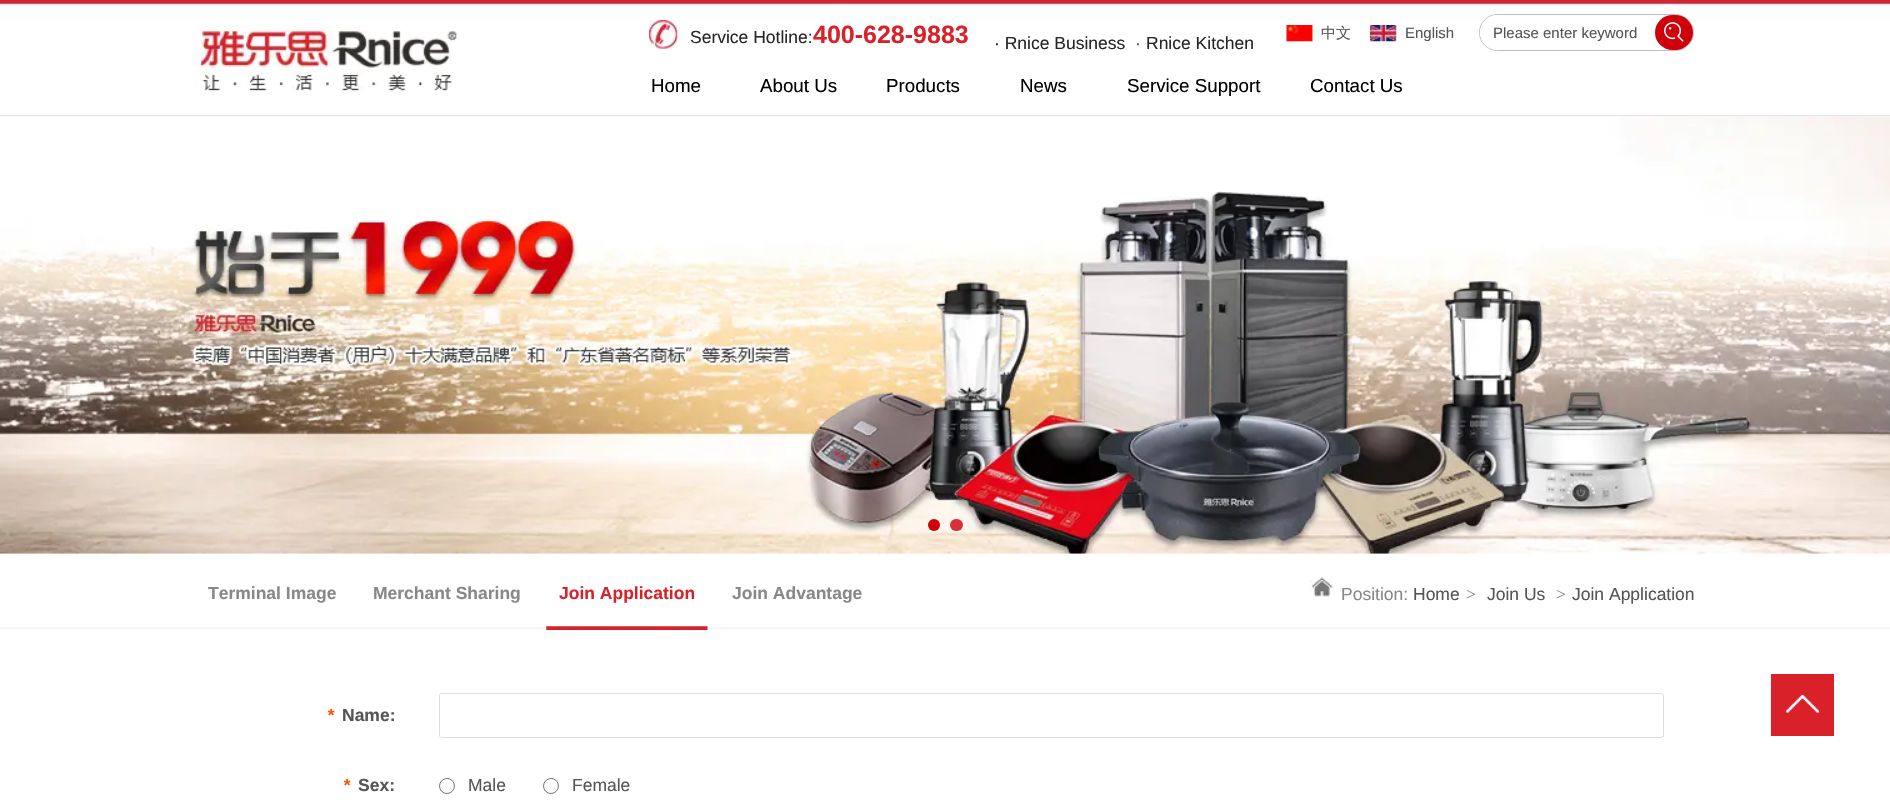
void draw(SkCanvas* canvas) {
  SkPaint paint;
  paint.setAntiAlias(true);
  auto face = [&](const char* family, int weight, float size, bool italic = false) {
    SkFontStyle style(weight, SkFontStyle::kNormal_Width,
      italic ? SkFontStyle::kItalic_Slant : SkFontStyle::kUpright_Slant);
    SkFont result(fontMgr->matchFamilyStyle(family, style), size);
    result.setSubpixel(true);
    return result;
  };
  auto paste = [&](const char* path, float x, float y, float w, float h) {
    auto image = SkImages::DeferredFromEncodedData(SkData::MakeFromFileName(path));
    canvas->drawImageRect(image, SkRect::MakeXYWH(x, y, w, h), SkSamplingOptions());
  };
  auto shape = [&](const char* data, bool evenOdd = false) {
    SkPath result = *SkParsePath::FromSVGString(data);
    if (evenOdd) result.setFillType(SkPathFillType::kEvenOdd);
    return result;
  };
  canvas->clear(0xffffffff);
  paste("img/1.png", 0, 0, 1890, 117);
  paste("img/2.png", 193, 25, 265, 66);
  paste("img/3.png", 648, 20, 30, 29);
  paste("img/4.png", 1286, 25, 27, 17);
  paste("img/5.png", 1370, 25, 27, 17);
  paint.setStroke(true);
  paint.setStrokeWidth(1);
  paint.setColor(0xffbfbfbf);
  canvas->drawRoundRect(SkRect::MakeXYWH(1479.5f, 14.5f, 214, 36), 18, 18, paint);
  paint.setStroke(false);
  paint.setColor(0xffffffff);
  canvas->drawPath(shape("M1497.5 15H1655V50H1497.5C1488 50 1480 42 1480 32.5C1480 23 1488 15 1497.5 15Z"), paint);
  paint.setColor(0xffcd000b);
  canvas->drawRoundRect(SkRect::MakeXYWH(1655, 15, 38, 35), 17.5f, 17.5f, paint);
  paste("img/6.png", 1664, 22, 20, 20);
  paste("img/7.png", 0, 116, 1890, 438);
  canvas->drawCircle(934, 525, 6, paint);
  paint.setColor(0xcccd000b);
  canvas->drawRoundRect(SkRect::MakeXYWH(950, 519, 13, 12), 6, 6, paint);
  paste("img/8.png", 0, 627, 1890, 2);
  paint.setColor(0xffffffff);
  canvas->drawRect(SkRect::MakeXYWH(546, 627, 162, 2), paint);
  paste("img/9.png", 546, 626, 162, 4);
  paste("img/10.png", 1310, 577, 23, 20);
  paint.setStroke(true);
  paint.setColor(0xffdddddd);
  canvas->drawRoundRect(SkRect::MakeXYWH(439.5f, 693.5f, 1224, 44), 2, 2, paint);
  paint.setColor(0xff767676);
  canvas->drawCircle(447, 786, 7.5f, paint);
  canvas->drawCircle(551, 786, 7.5f, paint);
  paint.setStroke(false);
  paint.setColor(0xffd82128);
  canvas->drawRect(SkRect::MakeXYWH(1771, 674, 63, 62), paint);
  paste("img/11.png", 1786, 694, 33, 19);
  auto f0 = face("Liberation Sans", 400, 17.5f);
  paint.setColor(0xff262626);
  canvas->drawString("Service Hotline:", 690, 43, f0, paint);
  auto f1 = face("Liberation Sans", 700, 25);
  paint.setColor(0xffd82128);
  canvas->drawString("400-628-9883", 813, 43, f1, paint);
  auto f2 = face("WenQuanYi Zen Hei", 500, 15);
  paint.setColor(0xff555555);
  canvas->drawString("中文", 1321, 38, f2, paint);
  auto f3 = face("Liberation Sans", 400, 15);
  canvas->drawString("English", 1405, 38, f3, paint);
  canvas->drawString("Please enter keyword", 1493, 38, f3, paint);
  paint.setColor(0xff262626);
  canvas->drawString("· Rnice Business", 994, 49, f0, paint);
  paint.setColor(0xff555555);
  canvas->drawString("·", 1135, 49, f0, paint);
  paint.setColor(0xff262626);
  canvas->drawString("Rnice Kitchen", 1146, 49, f0, paint);
  auto f4 = face("Liberation Sans", 400, 18.75f);
  paint.setColor(0xff000000);
  {
    const struct { const char* s; float x, y; } items[] = {
      {"Home", 651, 92},
      {"About Us", 760, 92},
      {"Products", 886, 92},
      {"News", 1020, 92},
      {"Service Support", 1127, 92},
      {"Contact Us", 1310, 92},
    };
    for (auto [s, x, y] : items) {
      canvas->drawString(s, x, y, f4, paint);
    }
  }
  auto f5 = face("Liberation Sans", 700, 17.5f);
  paint.setColor(0xff888888);
  canvas->drawString("Terminal Image", 208, 599, f5, paint);
  canvas->drawString("Merchant Sharing", 373, 599, f5, paint);
  paint.setColor(0xffd82128);
  canvas->drawString("Join Application", 559, 599, f5, paint);
  paint.setColor(0xff888888);
  canvas->drawString("Join Advantage", 732, 599, f5, paint);
  canvas->drawString("Position:", 1341, 600, f0, paint);
  paint.setColor(0xff555555);
  canvas->drawString("Home", 1413, 600, f0, paint);
  auto f6 = face("Liberation Serif", 400, 17.5f);
  paint.setColor(0xff888888);
  canvas->drawString(">", 1466, 600, f6, paint);
  paint.setColor(0xff555555);
  canvas->drawString("Join Us", 1487, 600, f0, paint);
  paint.setColor(0xff888888);
  canvas->drawString(">", 1556, 600, f6, paint);
  paint.setColor(0xff555555);
  canvas->drawString("Join Application", 1572, 600, f0, paint);
  auto f7 = face("Liberation Sans", 700, 17.5f, true);
  paint.setColor(0xffff5500);
  canvas->drawString("*", 327, 721, f7, paint);
  paint.setColor(0xff555555);
  canvas->drawString("Name:", 342, 721, f5, paint);
  paint.setColor(0xffff5500);
  canvas->drawString("*", 343, 791, f7, paint);
  paint.setColor(0xff555555);
  canvas->drawString("Sex:", 358, 791, f5, paint);
  canvas->drawString("Male", 468, 791, f0, paint);
  canvas->drawString("Female", 572, 791, f0, paint);
}
